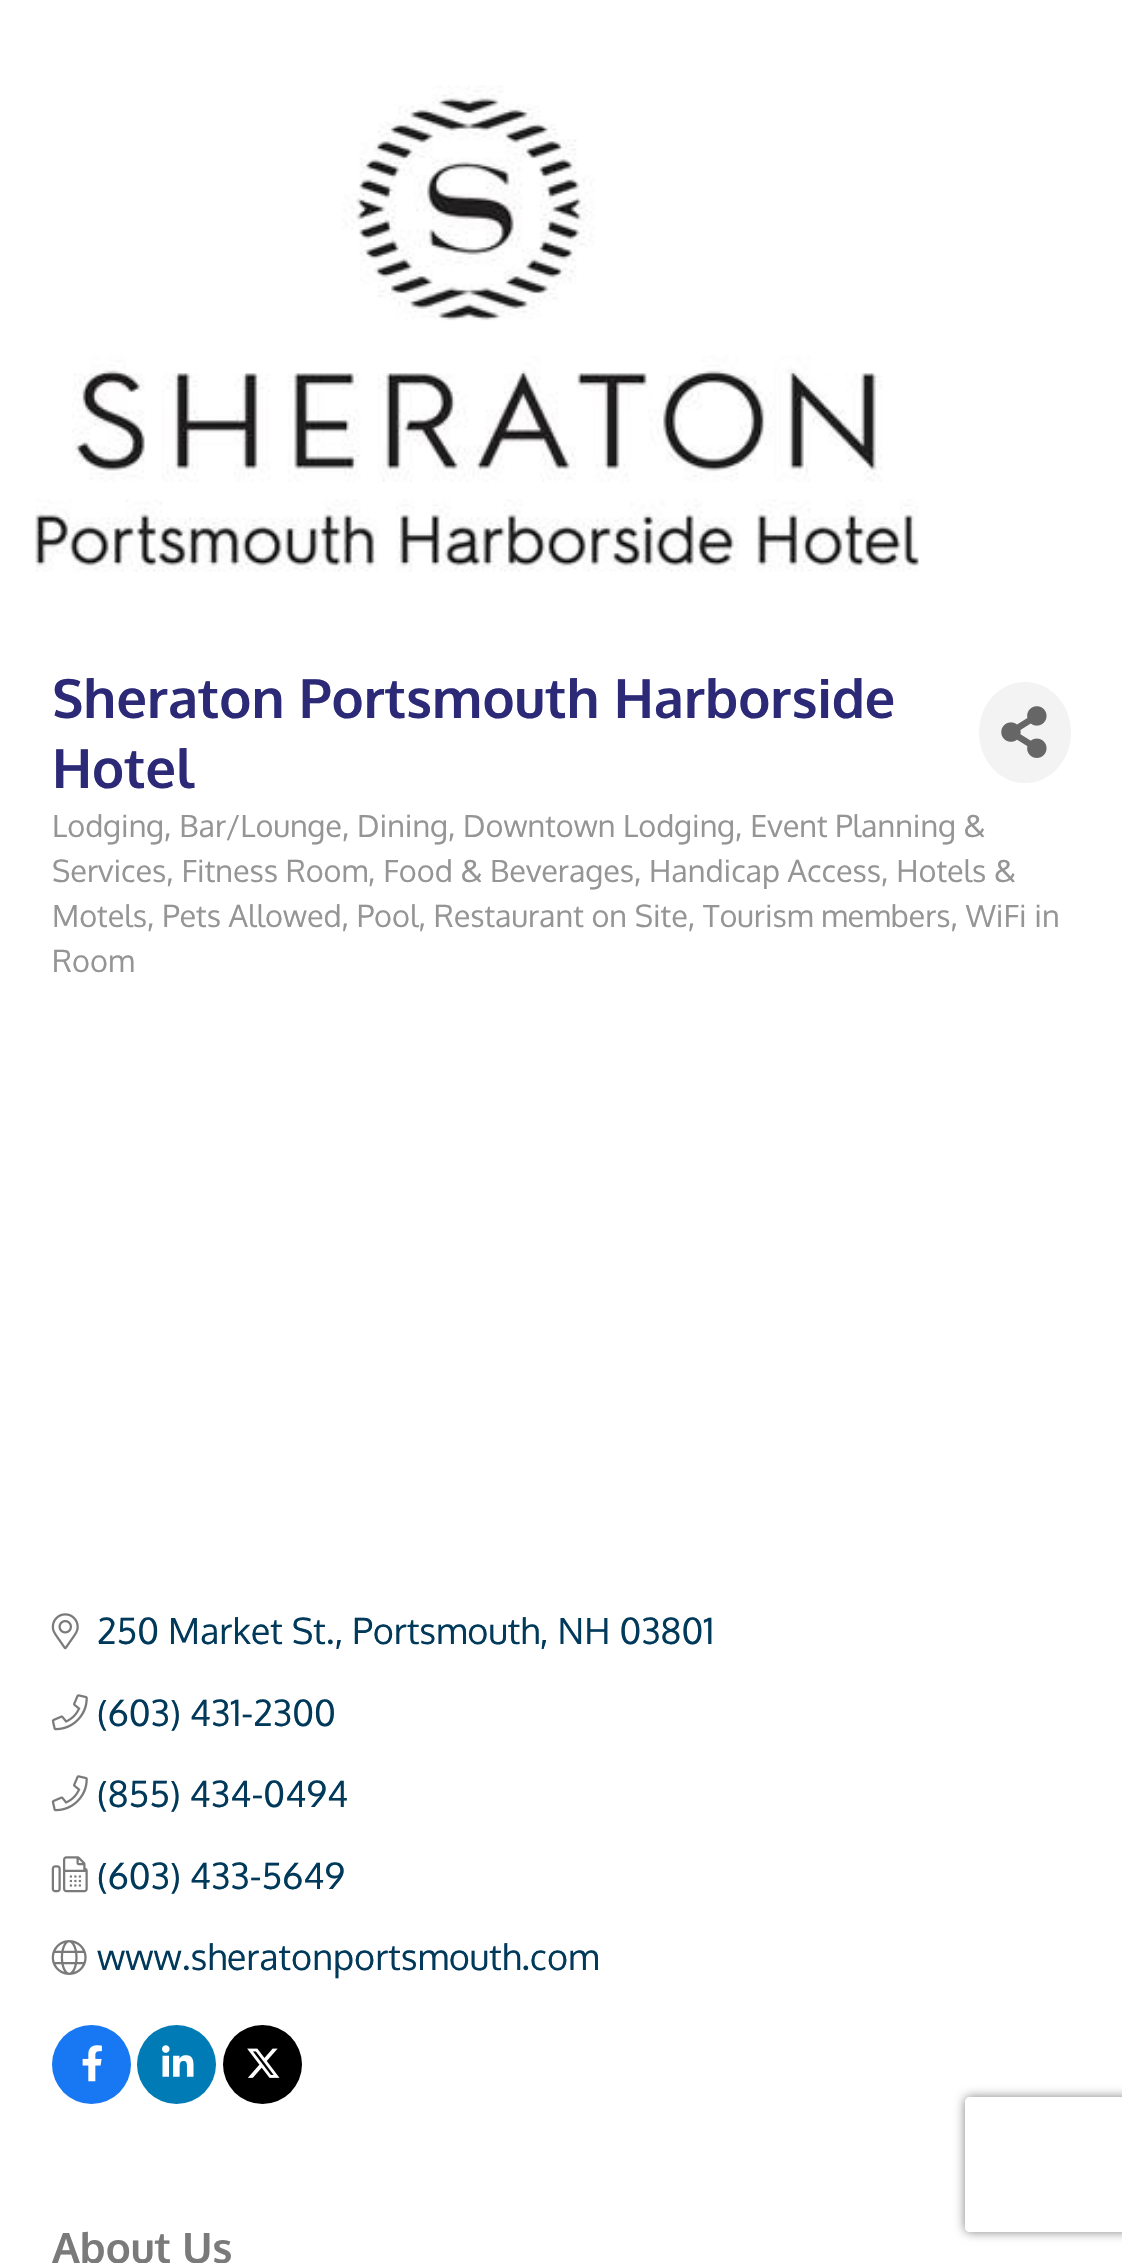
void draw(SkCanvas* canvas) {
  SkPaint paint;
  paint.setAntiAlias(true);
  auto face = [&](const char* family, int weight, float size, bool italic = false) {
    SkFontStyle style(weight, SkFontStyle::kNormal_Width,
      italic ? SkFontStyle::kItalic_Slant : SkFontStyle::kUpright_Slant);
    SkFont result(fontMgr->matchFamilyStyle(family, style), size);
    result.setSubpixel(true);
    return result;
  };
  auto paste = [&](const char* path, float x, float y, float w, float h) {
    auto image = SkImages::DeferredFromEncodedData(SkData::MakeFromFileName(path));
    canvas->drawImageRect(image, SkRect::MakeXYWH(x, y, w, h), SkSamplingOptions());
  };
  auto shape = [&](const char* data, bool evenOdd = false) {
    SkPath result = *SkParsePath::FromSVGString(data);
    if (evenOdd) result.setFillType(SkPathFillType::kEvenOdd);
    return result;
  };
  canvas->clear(0xffffffff);
  paste("img/1.png", 35, 85, 884, 487);
  paint.setColor(0xfff3f3f3);
  canvas->drawOval(SkRect::MakeXYWH(979, 682, 92, 101), paint);
  paste("img/2.png", 1001, 706, 46, 52);
  paste("img/3.png", 51, 1613, 28, 37);
  paste("img/4.png", 51, 1694, 37, 37);
  paste("img/4.png", 51, 1775, 37, 37);
  paste("img/5.png", 51, 1856, 37, 37);
  paste("img/6.png", 51, 1940, 36, 35);
  paint.setColor(0xff1877f2);
  canvas->drawCircle(91.5f, 2064.5f, 39.5f, paint);
  paste("img/7.png", 82, 2045, 20, 37);
  paint.setColor(0xff007bb5);
  canvas->drawCircle(176.5f, 2064.5f, 39.5f, paint);
  paste("img/8.png", 162, 2045, 32, 32);
  paint.setColor(0xff000000);
  canvas->drawCircle(262.5f, 2064.5f, 39.5f, paint);
  paste("img/9.png", 247, 2048, 33, 30);
  canvas->save();
  canvas->clipPath(shape("M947 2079H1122V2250H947ZM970 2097H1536C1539 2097 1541 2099 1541 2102V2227C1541 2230 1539 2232 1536 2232H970C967 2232 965 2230 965 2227V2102C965 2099 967 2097 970 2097Z", true), true);
  paint.setColor(0xff808080);
  paint.setMaskFilter(SkMaskFilter::MakeBlur(kNormal_SkBlurStyle, 5.5f));
  canvas->drawRoundRect(SkRect::MakeXYWH(965, 2097, 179, 135), 5, 5, paint);
  paint.setMaskFilter(nullptr);
  canvas->restore();
  auto f0 = face("Oxygen", 700, 54);
  paint.setColor(0xff2c2a77);
  canvas->drawString("Sheraton Portsmouth Harborside", 52, 718, f0, paint);
  canvas->drawString("Hotel", 52, 788, f0, paint);
  auto f1 = face("Oxygen", 400, 30.6f);
  paint.setColor(0xff959595);
  {
    const struct { const char* s; float x, y; } items[] = {
      {"Lodging, Bar/Lounge, Dining, Downtown Lodging, Event Planning &", 52, 837},
      {"Services, Fitness Room, Food & Beverages, Handicap Access, Hotels &", 52, 882},
      {"Motels, Pets Allowed, Pool, Restaurant on Site, Tourism members, WiFi in", 52, 927},
      {"Room", 52, 972},
    };
    for (auto [s, x, y] : items) {
      canvas->drawString(s, x, y, f1, paint);
    }
  }
  auto f2 = face("Oxygen", 400, 36);
  paint.setColor(0xff00395a);
  {
    const struct { const char* s; float x, y; } items[] = {
      {"250 Market St., Portsmouth, NH 03801", 97, 1644},
      {"(603) 431-2300", 97, 1726},
      {"(855) 434-0494", 97, 1807},
      {"(603) 433-5649", 97, 1889},
      {"www.sheratonportsmouth.com", 97, 1970},
    };
    for (auto [s, x, y] : items) {
      canvas->drawString(s, x, y, f2, paint);
    }
  }
  auto f3 = face("Oxygen", 700, 42);
  paint.setColor(0xff7a7a7a);
  canvas->drawString("About Us", 52, 2263, f3, paint);
}
